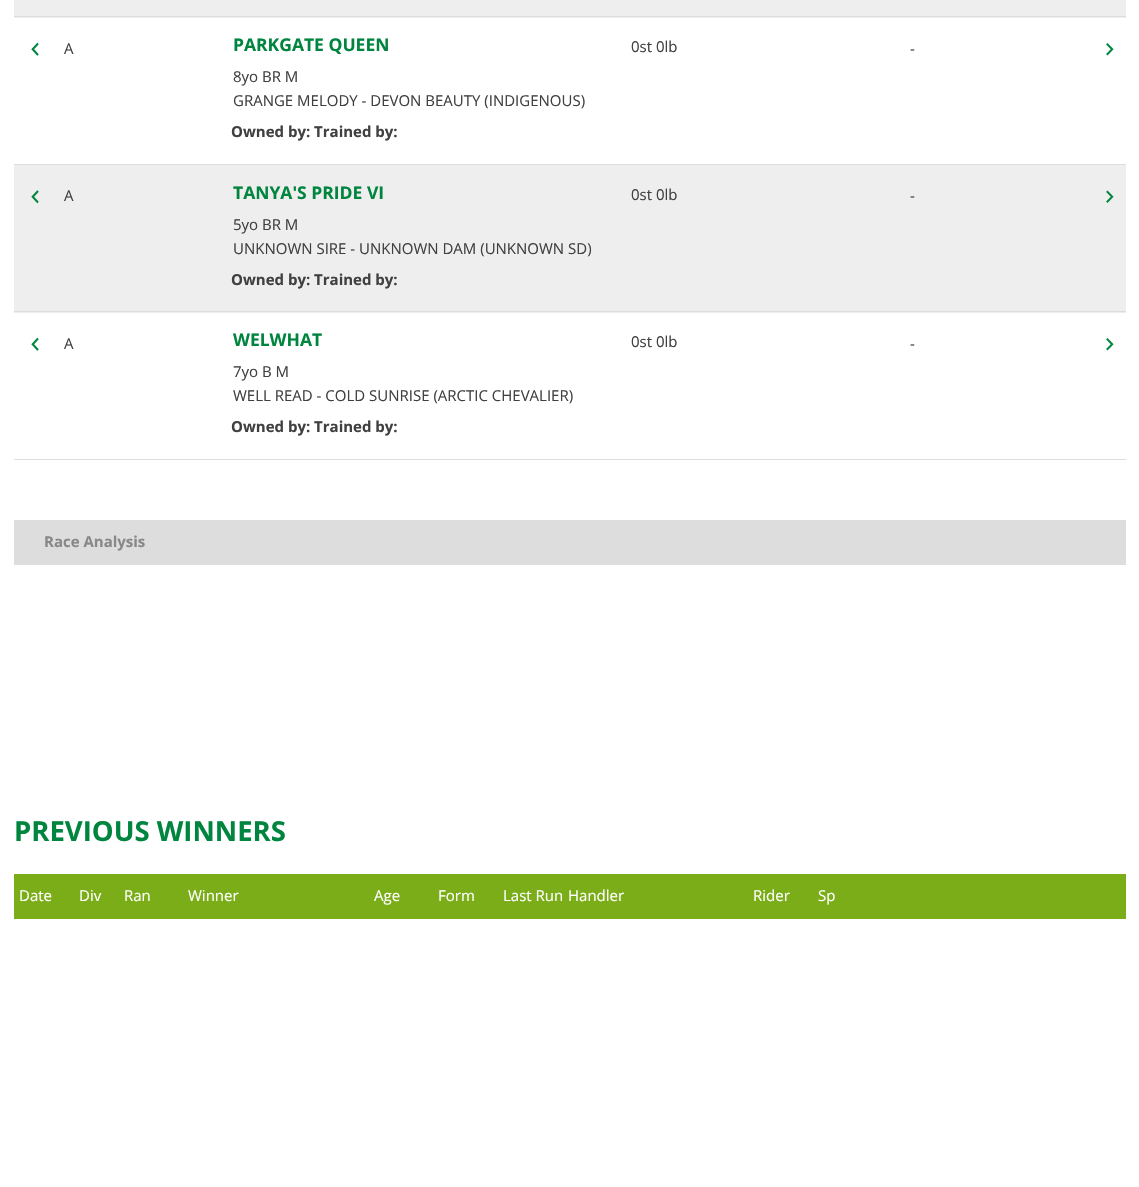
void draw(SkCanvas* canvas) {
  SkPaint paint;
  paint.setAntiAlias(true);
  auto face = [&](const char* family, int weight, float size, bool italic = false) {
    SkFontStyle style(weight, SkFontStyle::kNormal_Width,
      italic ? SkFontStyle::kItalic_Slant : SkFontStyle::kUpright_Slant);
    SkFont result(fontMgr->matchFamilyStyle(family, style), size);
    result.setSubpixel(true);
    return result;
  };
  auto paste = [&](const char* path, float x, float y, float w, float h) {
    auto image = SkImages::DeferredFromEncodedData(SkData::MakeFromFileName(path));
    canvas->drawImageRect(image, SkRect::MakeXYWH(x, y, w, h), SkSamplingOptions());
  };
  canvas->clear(0xffffffff);
  {
    const struct { float x, y, w, h; SkColor color; } items[] = {
      {14, 0, 1112, 18, 0xffeeeeee},
      {14, 16, 1112, 1, 0xffdddddd},
      {14, 164, 1112, 1, 0xffdddddd},
    };
    for (auto [x, y, w, h, color] : items) {
      paint.setColor(color);
      canvas->drawRect(SkRect::MakeXYWH(x, y, w, h), paint);
    }
  }
  paste("img/1.png", 31, 42, 8, 14);
  paste("img/2.png", 1106, 43, 8, 13);
  paint.setColor(0xffeeeeee);
  canvas->drawRect(SkRect::MakeXYWH(14, 165, 1112, 148), paint);
  paint.setColor(0xffdddddd);
  canvas->drawRect(SkRect::MakeXYWH(14, 311, 1112, 1), paint);
  paste("img/3.png", 31, 190, 8, 14);
  paste("img/4.png", 1106, 190, 8, 13);
  canvas->drawRect(SkRect::MakeXYWH(14, 459, 1112, 1), paint);
  paste("img/1.png", 31, 337, 8, 14);
  paste("img/2.png", 1106, 338, 8, 13);
  {
    const struct { float x, y, w, h; SkColor color; } items[] = {
      {14, 520, 1112, 45, 0xffdddddd},
      {14, 874, 1112, 45, 0xff7aad17},
      {14, 978, 1112, 1, 0xffdddddd},
    };
    for (auto [x, y, w, h, color] : items) {
      paint.setColor(color);
      canvas->drawRect(SkRect::MakeXYWH(x, y, w, h), paint);
    }
  }
  {
    const SkColor colors[] = {0xc9ffffff, 0xffffffff};
    const float stops[] = {0, 0.29f};
    const SkPoint ends[] = {{570, 919}, {570, 1159}};
    paint.setShader(SkGradientShader::MakeLinear(ends, colors, stops, 2, SkTileMode::kClamp));
    paint.setAlpha(255);
  }
  canvas->drawRect(SkRect::MakeXYWH(14, 978, 1112, 1), paint);
  auto f0 = face("Open Sans", 400, 15);
  paint.setShader(nullptr);
  paint.setColor(0xff404040);
  canvas->drawString("A", 64, 54, f0, paint);
  auto f1 = face("Open Sans", 700, 17.5f);
  paint.setColor(0xff00853f);
  canvas->drawString("PARKGATE QUEEN", 233, 51, f1, paint);
  paint.setColor(0xff404040);
  {
    const struct { const char* s; float x, y; } items[] = {
      {"8yo BR M", 233, 82},
      {"GRANGE MELODY - DEVON BEAUTY (INDIGENOUS)", 233, 106},
      {"0st 0lb", 631, 52},
      {"-", 910, 54},
    };
    for (auto [s, x, y] : items) {
      canvas->drawString(s, x, y, f0, paint);
    }
  }
  auto f2 = face("Open Sans", 700, 15);
  canvas->drawString("Owned by: Trained by:", 231, 137, f2, paint);
  canvas->drawString("A", 64, 201, f0, paint);
  paint.setColor(0xff00853f);
  canvas->drawString("TANYA'S PRIDE VI", 233, 199, f1, paint);
  paint.setColor(0xff404040);
  {
    const struct { const char* s; float x, y; } items[] = {
      {"5yo BR M", 233, 230},
      {"UNKNOWN SIRE - UNKNOWN DAM (UNKNOWN SD)", 233, 254},
      {"0st 0lb", 631, 200},
      {"-", 910, 201},
    };
    for (auto [s, x, y] : items) {
      canvas->drawString(s, x, y, f0, paint);
    }
  }
  canvas->drawString("Owned by: Trained by:", 231, 285, f2, paint);
  canvas->drawString("A", 64, 349, f0, paint);
  paint.setColor(0xff00853f);
  canvas->drawString("WELWHAT", 233, 346, f1, paint);
  paint.setColor(0xff404040);
  {
    const struct { const char* s; float x, y; } items[] = {
      {"7yo B M", 233, 377},
      {"WELL READ - COLD SUNRISE (ARCTIC CHEVALIER)", 233, 401},
      {"0st 0lb", 631, 347},
      {"-", 910, 349},
    };
    for (auto [s, x, y] : items) {
      canvas->drawString(s, x, y, f0, paint);
    }
  }
  canvas->drawString("Owned by: Trained by:", 231, 432, f2, paint);
  paint.setColor(0xff888888);
  canvas->drawString("Race Analysis", 44, 547, f2, paint);
  auto f3 = face("Open Sans", 700, 27.5f);
  paint.setColor(0xff00853f);
  canvas->drawString("PREVIOUS WINNERS", 14, 841, f3, paint);
  paint.setColor(0xffffffff);
  {
    const struct { const char* s; float x, y; } items[] = {
      {"Date", 19, 901},
      {"Div", 79, 901},
      {"Ran", 124, 901},
      {"Winner", 188, 901},
      {"Age", 374, 901},
      {"Form", 438, 901},
      {"Last Run", 503, 901},
      {"Handler", 568, 901},
      {"Rider", 753, 901},
      {"Sp", 818, 901},
    };
    for (auto [s, x, y] : items) {
      canvas->drawString(s, x, y, f0, paint);
    }
  }
}
